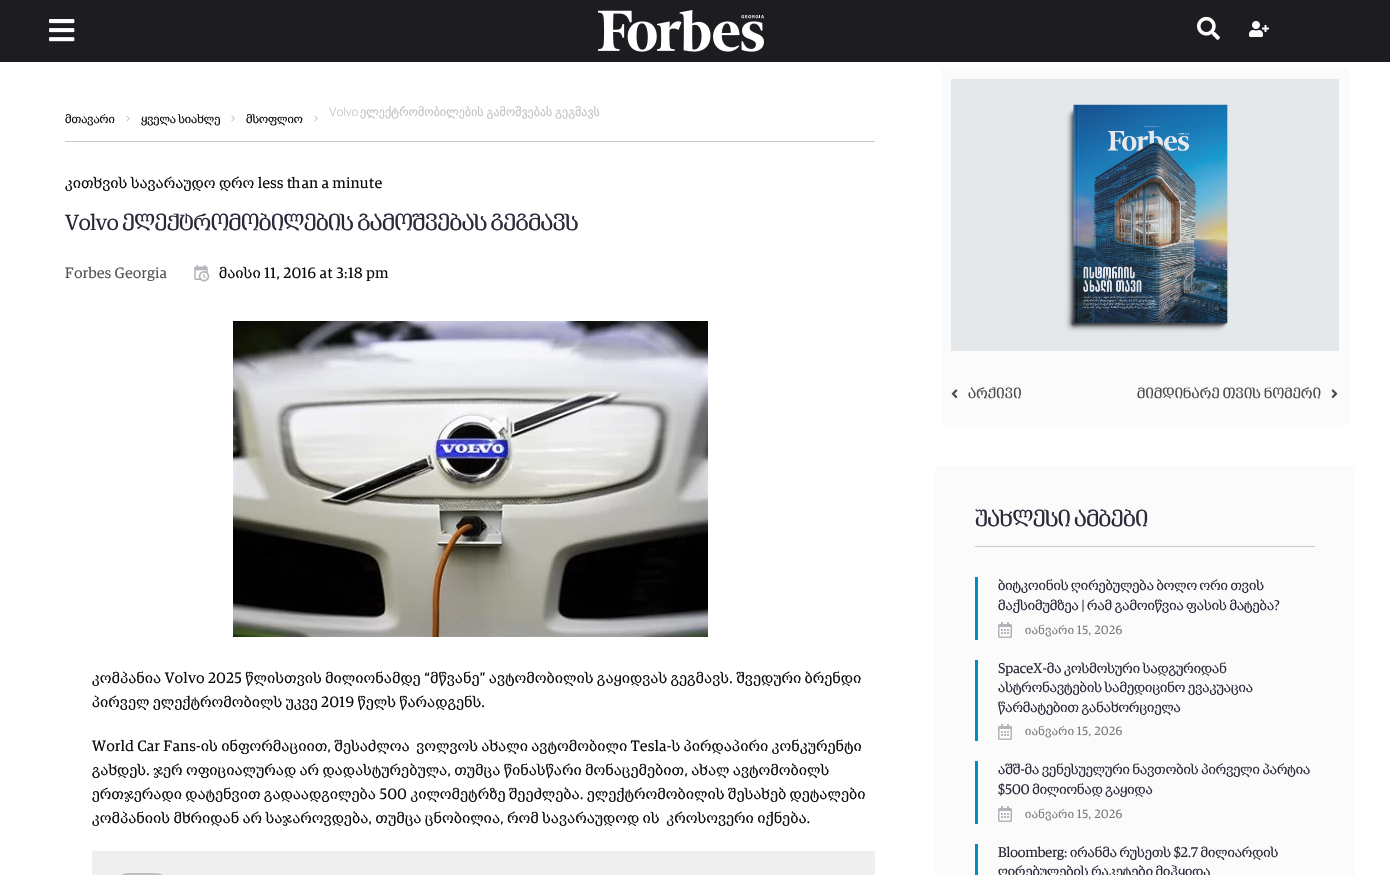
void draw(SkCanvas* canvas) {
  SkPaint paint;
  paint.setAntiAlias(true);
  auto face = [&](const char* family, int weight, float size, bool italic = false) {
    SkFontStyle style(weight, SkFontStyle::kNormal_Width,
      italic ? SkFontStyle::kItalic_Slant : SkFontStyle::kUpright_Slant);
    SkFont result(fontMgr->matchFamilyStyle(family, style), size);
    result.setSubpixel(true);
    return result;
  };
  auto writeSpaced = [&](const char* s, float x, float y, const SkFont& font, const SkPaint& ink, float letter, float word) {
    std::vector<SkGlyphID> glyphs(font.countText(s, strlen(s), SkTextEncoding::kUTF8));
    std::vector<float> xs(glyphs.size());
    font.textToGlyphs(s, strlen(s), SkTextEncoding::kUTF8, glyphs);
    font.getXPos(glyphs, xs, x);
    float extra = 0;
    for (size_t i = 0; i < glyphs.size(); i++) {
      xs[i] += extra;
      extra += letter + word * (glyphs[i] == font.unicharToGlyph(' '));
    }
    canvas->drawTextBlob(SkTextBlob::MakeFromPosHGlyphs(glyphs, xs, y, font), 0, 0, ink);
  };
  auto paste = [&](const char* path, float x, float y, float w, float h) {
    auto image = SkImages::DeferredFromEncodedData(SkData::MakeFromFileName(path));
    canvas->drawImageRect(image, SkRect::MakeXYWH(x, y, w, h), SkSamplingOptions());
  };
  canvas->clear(0xffffffff);
  paint.setColor(0xff1c1c21);
  canvas->drawRect(SkRect::MakeXYWH(0, 0, 1390, 62), paint);
  paste("img/1.png", 49, 19, 26, 23);
  paste("img/2.png", 598, 10, 166, 42);
  paste("img/3.png", 1197, 16, 23, 24);
  paste("img/4.png", 1249, 21, 20, 16);
  paint.setColor(0xffc8c8ce);
  canvas->drawRect(SkRect::MakeXYWH(65, 141, 810, 1), paint);
  paste("img/5.png", 126, 115, 4, 7);
  paste("img/5.png", 231, 115, 4, 7);
  paste("img/5.png", 314, 115, 4, 7);
  paste("img/6.png", 194, 265, 16, 17);
  paste("img/7.png", 233, 321, 475, 316);
  paint.setColor(0xffefefef);
  canvas->drawRect(SkRect::MakeXYWH(92, 851, 783, 24), paint);
  paint.setStroke(true);
  paint.setStrokeWidth(2);
  paint.setColor(0xffbfbfbf);
  canvas->drawRoundRect(SkRect::MakeXYWH(113, 874, 58, 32), 29, 29, paint);
  paint.setStroke(false);
  paint.setColor(0xfffbfbfb);
  canvas->drawRect(SkRect::MakeXYWH(941, 69, 408, 356), paint);
  paste("img/8.png", 951, 79, 388, 272);
  paste("img/9.png", 951, 389, 7, 10);
  paste("img/10.png", 1331, 389, 7, 10);
  {
    const struct { float x, y, w, h; SkColor color; } items[] = {
      {935, 466, 420, 409, 0xfffbfbfb},
      {975, 546, 340, 1, 0xffc8c8cd},
      {975, 577, 3, 63, 0xff008cc4},
    };
    for (auto [x, y, w, h, color] : items) {
      paint.setColor(color);
      canvas->drawRect(SkRect::MakeXYWH(x, y, w, h), paint);
    }
  }
  paste("img/11.png", 998, 622, 14, 16);
  canvas->drawRect(SkRect::MakeXYWH(975, 660, 3, 81), paint);
  paste("img/11.png", 998, 724, 14, 16);
  canvas->drawRect(SkRect::MakeXYWH(975, 761, 3, 63), paint);
  paste("img/11.png", 998, 806, 14, 16);
  canvas->drawRect(SkRect::MakeXYWH(975, 844, 3, 31), paint);
  auto f0 = face("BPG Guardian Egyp", 400, 12);
  paint.setColor(0xff0a0a0a);
  {
    const struct { const char* s; float x, y; } items[] = {
      {"მთავარი", 65, 123},
      {"ყველა სიახლე", 141, 123},
      {"მსოფლიო", 246, 123},
    };
    for (auto [s, x, y] : items) {
      canvas->drawString(s, x, y, f0, paint);
    }
  }
  auto f1 = face("Roboto", 300, 12);
  paint.setColor(0xffc3c3c9);
  canvas->drawString("Volvo", 329, 116, f1, paint);
  auto f2 = face("DejaVu Sans", 400, 12);
  writeSpaced("ელექტრომობილების გამოშვებას გეგმავს", 360, 116, f2, paint, 0, -1);
  auto f3 = face("BPG Guardian Egyp", 400, 15);
  paint.setColor(0xff0a0a0a);
  writeSpaced("კითხვის სავარაუდო დრო less than a minute", 65, 188, f3, paint, 0.45f, 0);
  auto f4 = face("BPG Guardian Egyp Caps", 400, 22);
  paint.setColor(0xff29293a);
  writeSpaced("Volvo ელექტრომობილების გამოშვებას გეგმავს", 65, 230, f4, paint, -0.45f, 0);
  paint.setColor(0xff545454);
  writeSpaced("Forbes Georgia", 65, 278, f3, paint, 0.45f, 0);
  paint.setColor(0xff0a0a0a);
  {
    const struct { const char* s; float x, y; } items[] = {
      {"მაისი 11, 2016 at 3:18 pm", 219, 278},
      {"კომპანია Volvo 2025 წლისთვის მილიონამდე “მწვანე” ავტომობილის გაყიდვას გეგმავს. შვედური ბრენდი", 92, 683},
      {"პირველ ელექტრომობილს უკვე 2019 წელს წარადგენს.", 92, 707},
      {"World Car Fans-ის ინფორმაციით, შესაძლოა  ვოლვოს ახალი ავტომობილი Tesla-ს პირდაპირი კონკურენტი", 92, 751},
      {"გახდეს. ჯერ ოფიციალურად არ დადასტურებულა, თუმცა წინასწარი მონაცემებით, ახალ ავტომობილს", 92, 775},
      {"ერთჯერადი დატენვით გადაადგილება 500 კილომეტრზე შეეძლება. ელექტრომობილის შესახებ დეტალები", 92, 799},
      {"კომპანიის მხრიდან არ საჯაროვდება, თუმცა ცნობილია, რომ სავარაუდოდ ის  კროსოვერი იქნება.", 92, 823},
    };
    for (auto [s, x, y] : items) {
      writeSpaced(s, x, y, f3, paint, 0.45f, 0);
    }
  }
  auto f5 = face("BPG Guardian Egyp Caps", 400, 14);
  paint.setColor(0xff4a4a4a);
  writeSpaced("არქივი", 968, 398, f5, paint, 0.25f, 0);
  writeSpaced("მიმდინარე თვის ნომერი", 1137, 398, f5, paint, 0.25f, 0);
  paint.setColor(0xff29293a);
  writeSpaced("უახლესი ამბები", 975, 526, f4, paint, -0.45f, 0);
  auto f6 = face("BPG Guardian Egyp", 400, 14);
  canvas->drawString("ბიტკოინის ღირებულება ბოლო ორი თვის", 998, 590, f6, paint);
  canvas->drawString("მაქსიმუმზეა | რამ გამოიწვია ფასის მატება?", 998, 610, f6, paint);
  paint.setColor(0xff7a7a7a);
  writeSpaced("იანვარი 15, 2026", 1025, 634, f0, paint, 0.45f, 0);
  paint.setColor(0xff29293a);
  {
    const struct { const char* s; float x, y; } items[] = {
      {"SpaceX-მა კოსმოსური სადგურიდან", 998, 673},
      {"ასტრონავტების სამედიცინო ევაკუაცია", 998, 692},
      {"წარმატებით განახორციელა", 998, 712},
    };
    for (auto [s, x, y] : items) {
      canvas->drawString(s, x, y, f6, paint);
    }
  }
  paint.setColor(0xff7a7a7a);
  writeSpaced("იანვარი 15, 2026", 1025, 735, f0, paint, 0.45f, 0);
  paint.setColor(0xff29293a);
  canvas->drawString("აშშ-მა ვენესუელური ნავთობის პირველი პარტია", 998, 774, f6, paint);
  canvas->drawString("$500 მილიონად გაყიდა", 998, 794, f6, paint);
  paint.setColor(0xff7a7a7a);
  writeSpaced("იანვარი 15, 2026", 1025, 818, f0, paint, 0.45f, 0);
  paint.setColor(0xff29293a);
  canvas->drawString("Bloomberg: ირანმა რუსეთს $2.7 მილიარდის", 998, 857, f6, paint);
  canvas->drawString("ღირებულების რაკეტები მიჰყიდა", 998, 876, f6, paint);
}
